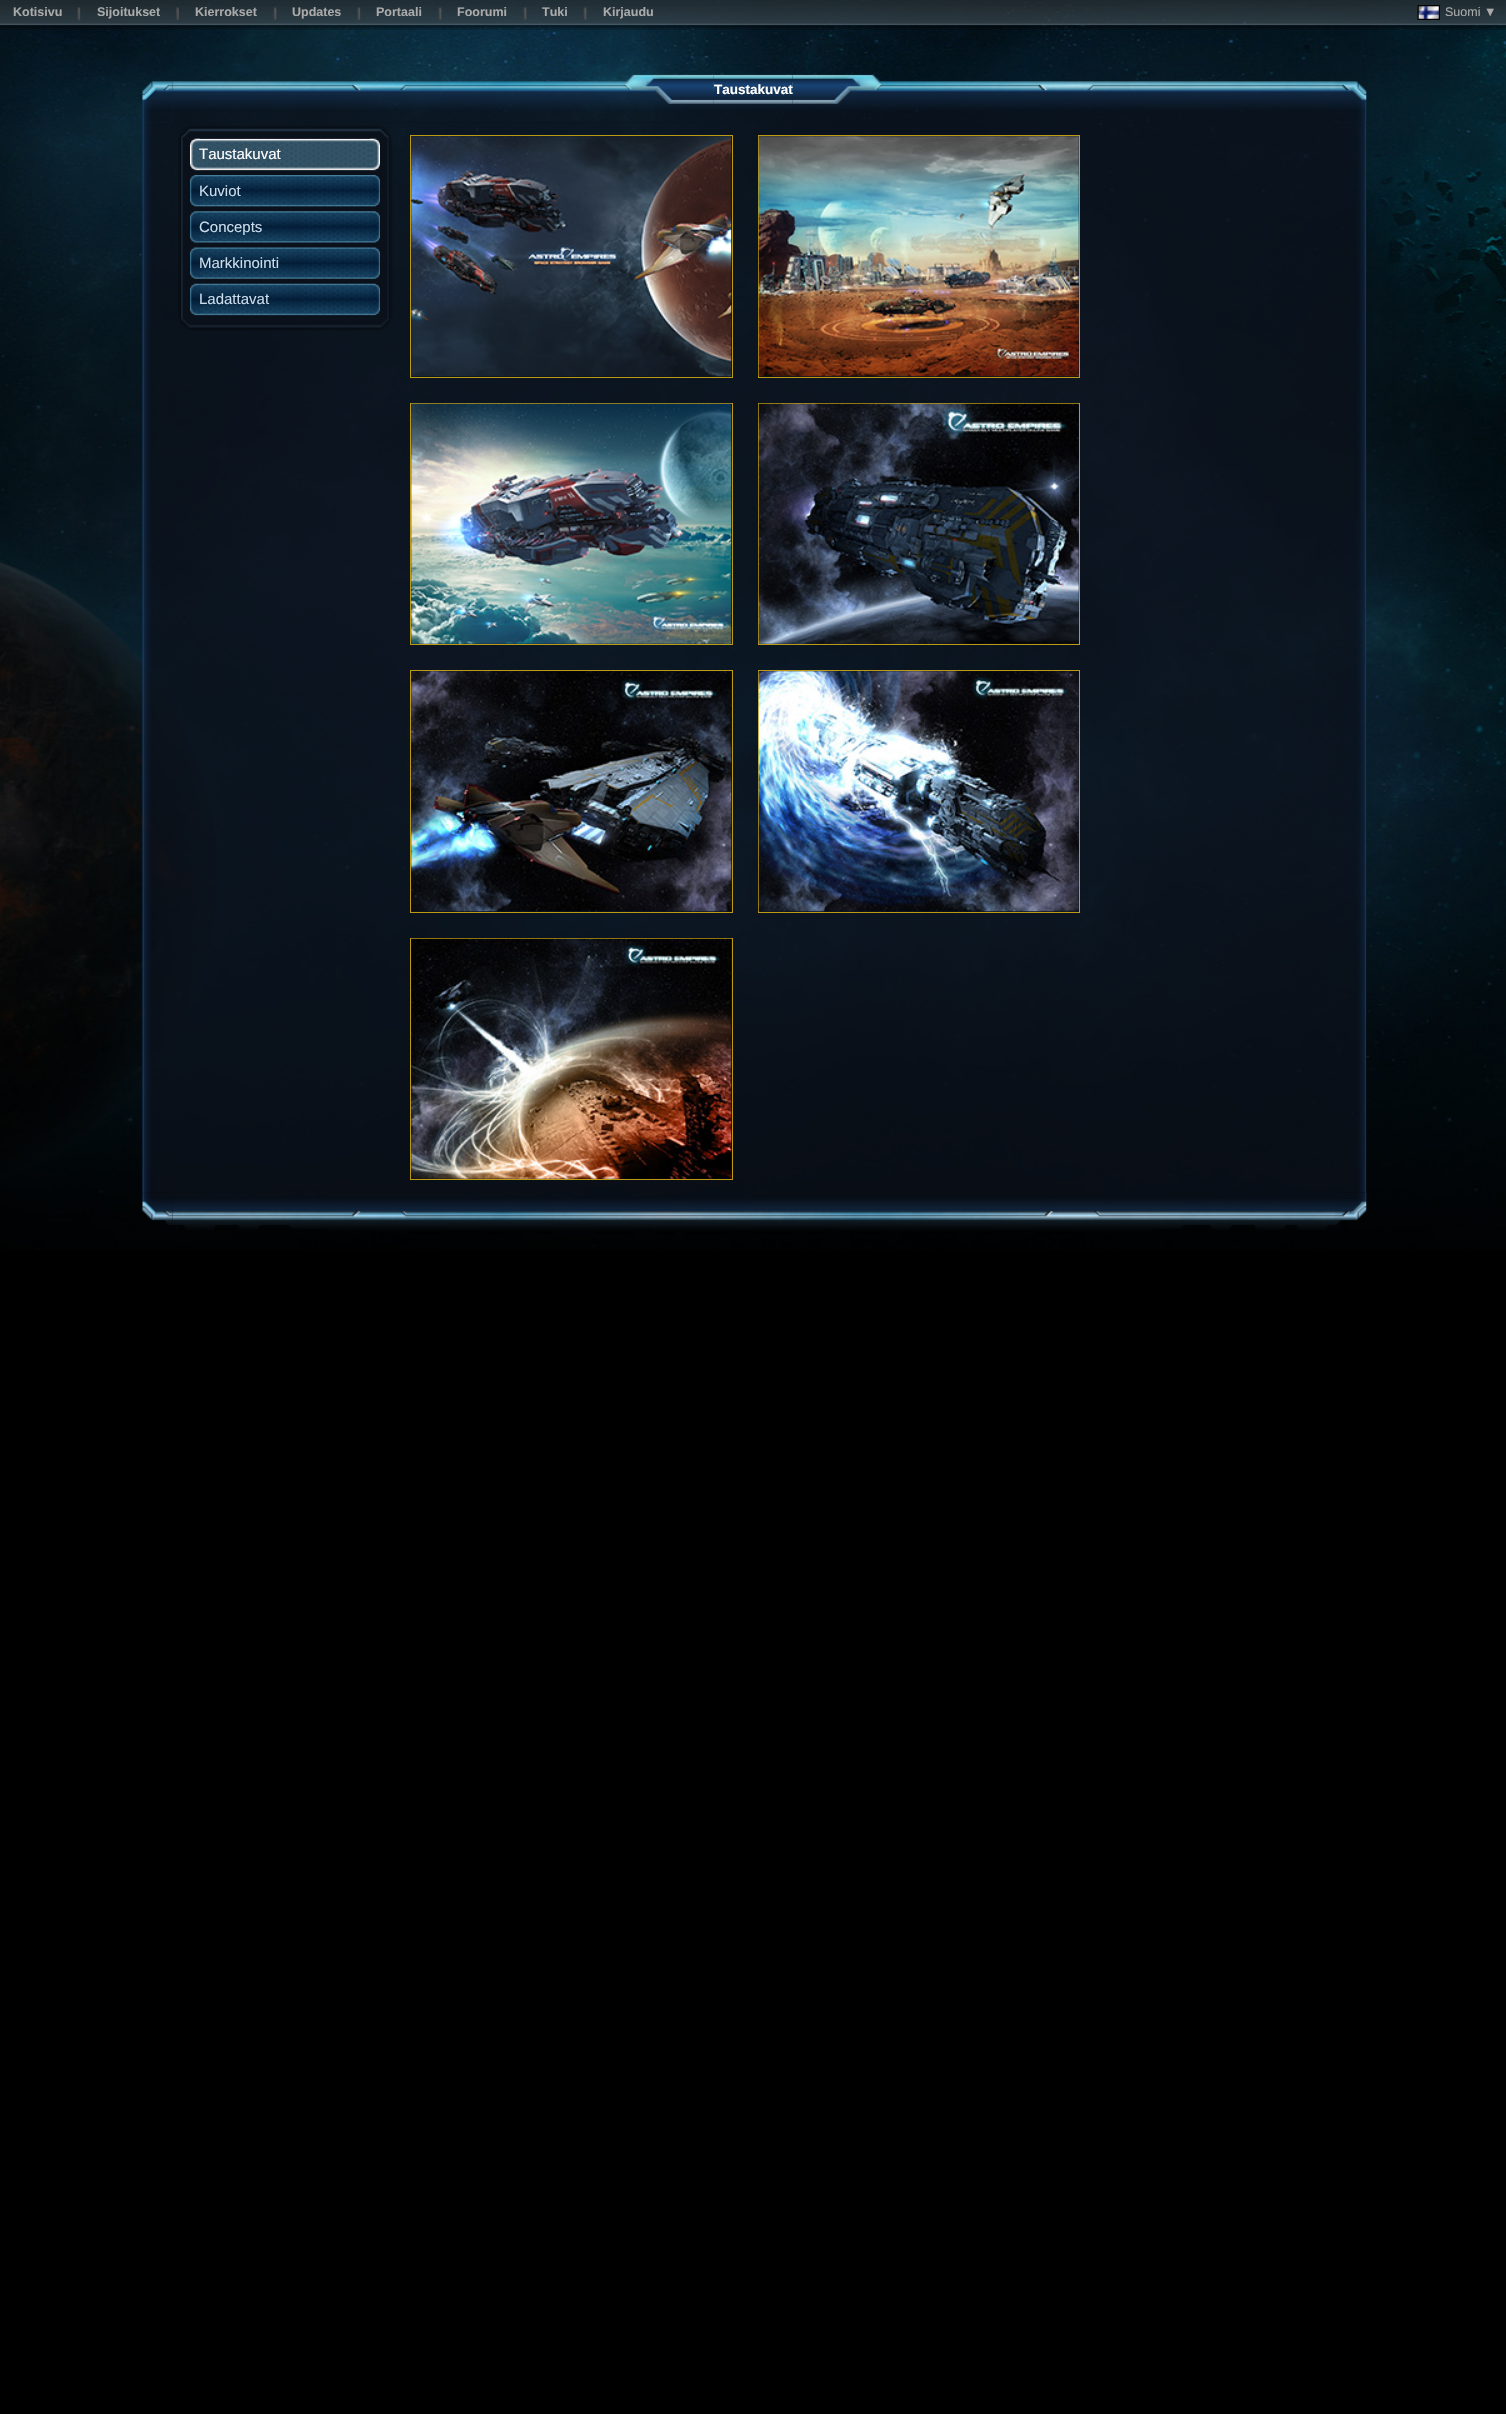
void draw(SkCanvas* canvas) {
  SkPaint paint;
  paint.setAntiAlias(true);
  auto face = [&](const char* family, int weight, float size, bool italic = false) {
    SkFontStyle style(weight, SkFontStyle::kNormal_Width,
      italic ? SkFontStyle::kItalic_Slant : SkFontStyle::kUpright_Slant);
    SkFont result(fontMgr->matchFamilyStyle(family, style), size);
    result.setSubpixel(true);
    return result;
  };
  auto paste = [&](const char* path, float x, float y, float w, float h) {
    auto image = SkImages::DeferredFromEncodedData(SkData::MakeFromFileName(path));
    canvas->drawImageRect(image, SkRect::MakeXYWH(x, y, w, h), SkSamplingOptions());
  };
  canvas->clear(0xff000000);
  paste("img/1.png", 0, 0, 1506, 1250);
  paste("img/2.png", 0, 0, 1506, 30);
  paste("img/3.png", 77, 7, 4, 13);
  paste("img/4.png", 176, 7, 3, 13);
  paste("img/5.png", 273, 7, 4, 13);
  paste("img/6.png", 357, 7, 4, 13);
  paste("img/7.png", 438, 7, 4, 13);
  paste("img/8.png", 523, 7, 4, 13);
  paste("img/9.png", 583, 7, 4, 13);
  paste("img/10.png", 1417, 5, 23, 15);
  paste("img/11.png", 142, 81, 31, 42);
  paste("img/12.png", 172, 81, 1163, 42);
  paste("img/13.png", 625, 74, 89, 30);
  paste("img/14.png", 713, 74, 80, 30);
  paste("img/15.png", 792, 74, 90, 30);
  paste("img/16.png", 1335, 81, 32, 42);
  paste("img/17.png", 142, 122, 31, 1071);
  paint.setColor(0xcc0a101a);
  canvas->drawRect(SkRect::MakeXYWH(172, 122, 1163, 1071), paint);
  paste("img/18.png", 179, 126, 11, 12);
  paste("img/19.png", 190, 125, 190, 12);
  paste("img/20.png", 380, 126, 11, 12);
  paste("img/21.png", 178, 137, 12, 182);
  paint.setColor(0xff0a111b);
  canvas->drawRect(SkRect::MakeXYWH(190, 137, 190, 181), paint);
  paste("img/22.png", 190, 138, 10, 33);
  paste("img/23.png", 200, 138, 170, 33);
  paste("img/24.png", 370, 138, 10, 33);
  paste("img/25.png", 190, 175, 10, 32);
  paste("img/26.png", 200, 175, 170, 32);
  paste("img/27.png", 370, 175, 10, 32);
  paste("img/28.png", 190, 211, 10, 32);
  paste("img/29.png", 200, 211, 170, 32);
  paste("img/30.png", 370, 211, 10, 32);
  paste("img/31.png", 190, 247, 10, 32);
  paste("img/32.png", 200, 247, 170, 32);
  paste("img/33.png", 370, 247, 10, 32);
  paste("img/34.png", 190, 283, 10, 33);
  paste("img/35.png", 200, 283, 170, 33);
  paste("img/36.png", 370, 283, 10, 33);
  paste("img/37.png", 380, 137, 13, 182);
  paste("img/38.png", 179, 319, 11, 11);
  paste("img/39.png", 190, 319, 190, 12);
  paste("img/40.png", 380, 319, 11, 11);
  paint.setStroke(true);
  paint.setStrokeWidth(1);
  paint.setColor(0xffbc9a14);
  canvas->drawRect(SkRect::MakeXYWH(410.5f, 135.5f, 322, 242), paint);
  canvas->drawRect(SkRect::MakeXYWH(758.5f, 135.5f, 321, 242), paint);
  paste("img/41.png", 411, 136, 321, 241);
  paste("img/42.png", 758, 136, 321, 241);
  canvas->drawRect(SkRect::MakeXYWH(410.5f, 403.5f, 322, 241), paint);
  paste("img/43.png", 411, 403, 321, 241);
  canvas->drawRect(SkRect::MakeXYWH(758.5f, 403.5f, 321, 241), paint);
  paste("img/44.png", 758, 403, 321, 241);
  canvas->drawRect(SkRect::MakeXYWH(410.5f, 670.5f, 322, 242), paint);
  canvas->drawRect(SkRect::MakeXYWH(758.5f, 670.5f, 321, 242), paint);
  paste("img/45.png", 411, 671, 321, 241);
  paste("img/46.png", 758, 671, 321, 241);
  canvas->drawRect(SkRect::MakeXYWH(410.5f, 938.5f, 322, 241), paint);
  paste("img/47.png", 411, 938, 321, 241);
  paste("img/48.png", 1335, 122, 32, 1071);
  paste("img/49.png", 142, 1192, 31, 33);
  paste("img/50.png", 172, 1193, 1163, 41);
  paste("img/51.png", 1335, 1192, 32, 33);
  auto f0 = face("Liberation Sans", 700, 12.5f);
  paint.setStroke(false);
  paint.setColor(0xffaaaaaa);
  {
    const struct { const char* s; float x, y; } items[] = {
      {"Kotisivu", 13, 16},
      {"Sijoitukset", 97, 16},
      {"Kierrokset", 195, 16},
      {"Updates", 292, 16},
      {"Portaali", 376, 16},
      {"Foorumi", 457, 16},
      {"Tuki", 542, 16},
      {"Kirjaudu", 603, 16},
    };
    for (auto [s, x, y] : items) {
      canvas->drawString(s, x, y, f0, paint);
    }
  }
  auto f1 = face("Liberation Sans", 400, 12.5f);
  canvas->drawString("Suomi ▼", 1445, 16, f1, paint);
  auto f2 = face("Liberation Sans", 700, 13.5f);
  paint.setColor(0xffffffff);
  canvas->drawString("Taustakuvat", 714, 94, f2, paint);
  auto f3 = face("Liberation Sans", 400, 15);
  canvas->drawString("Taustakuvat", 199, 159, f3, paint);
  paint.setColor(0xffcaddec);
  {
    const struct { const char* s; float x, y; } items[] = {
      {"Kuviot", 199, 196},
      {"Concepts", 199, 232},
      {"Markkinointi", 199, 268},
      {"Ladattavat", 199, 304},
    };
    for (auto [s, x, y] : items) {
      canvas->drawString(s, x, y, f3, paint);
    }
  }
}
